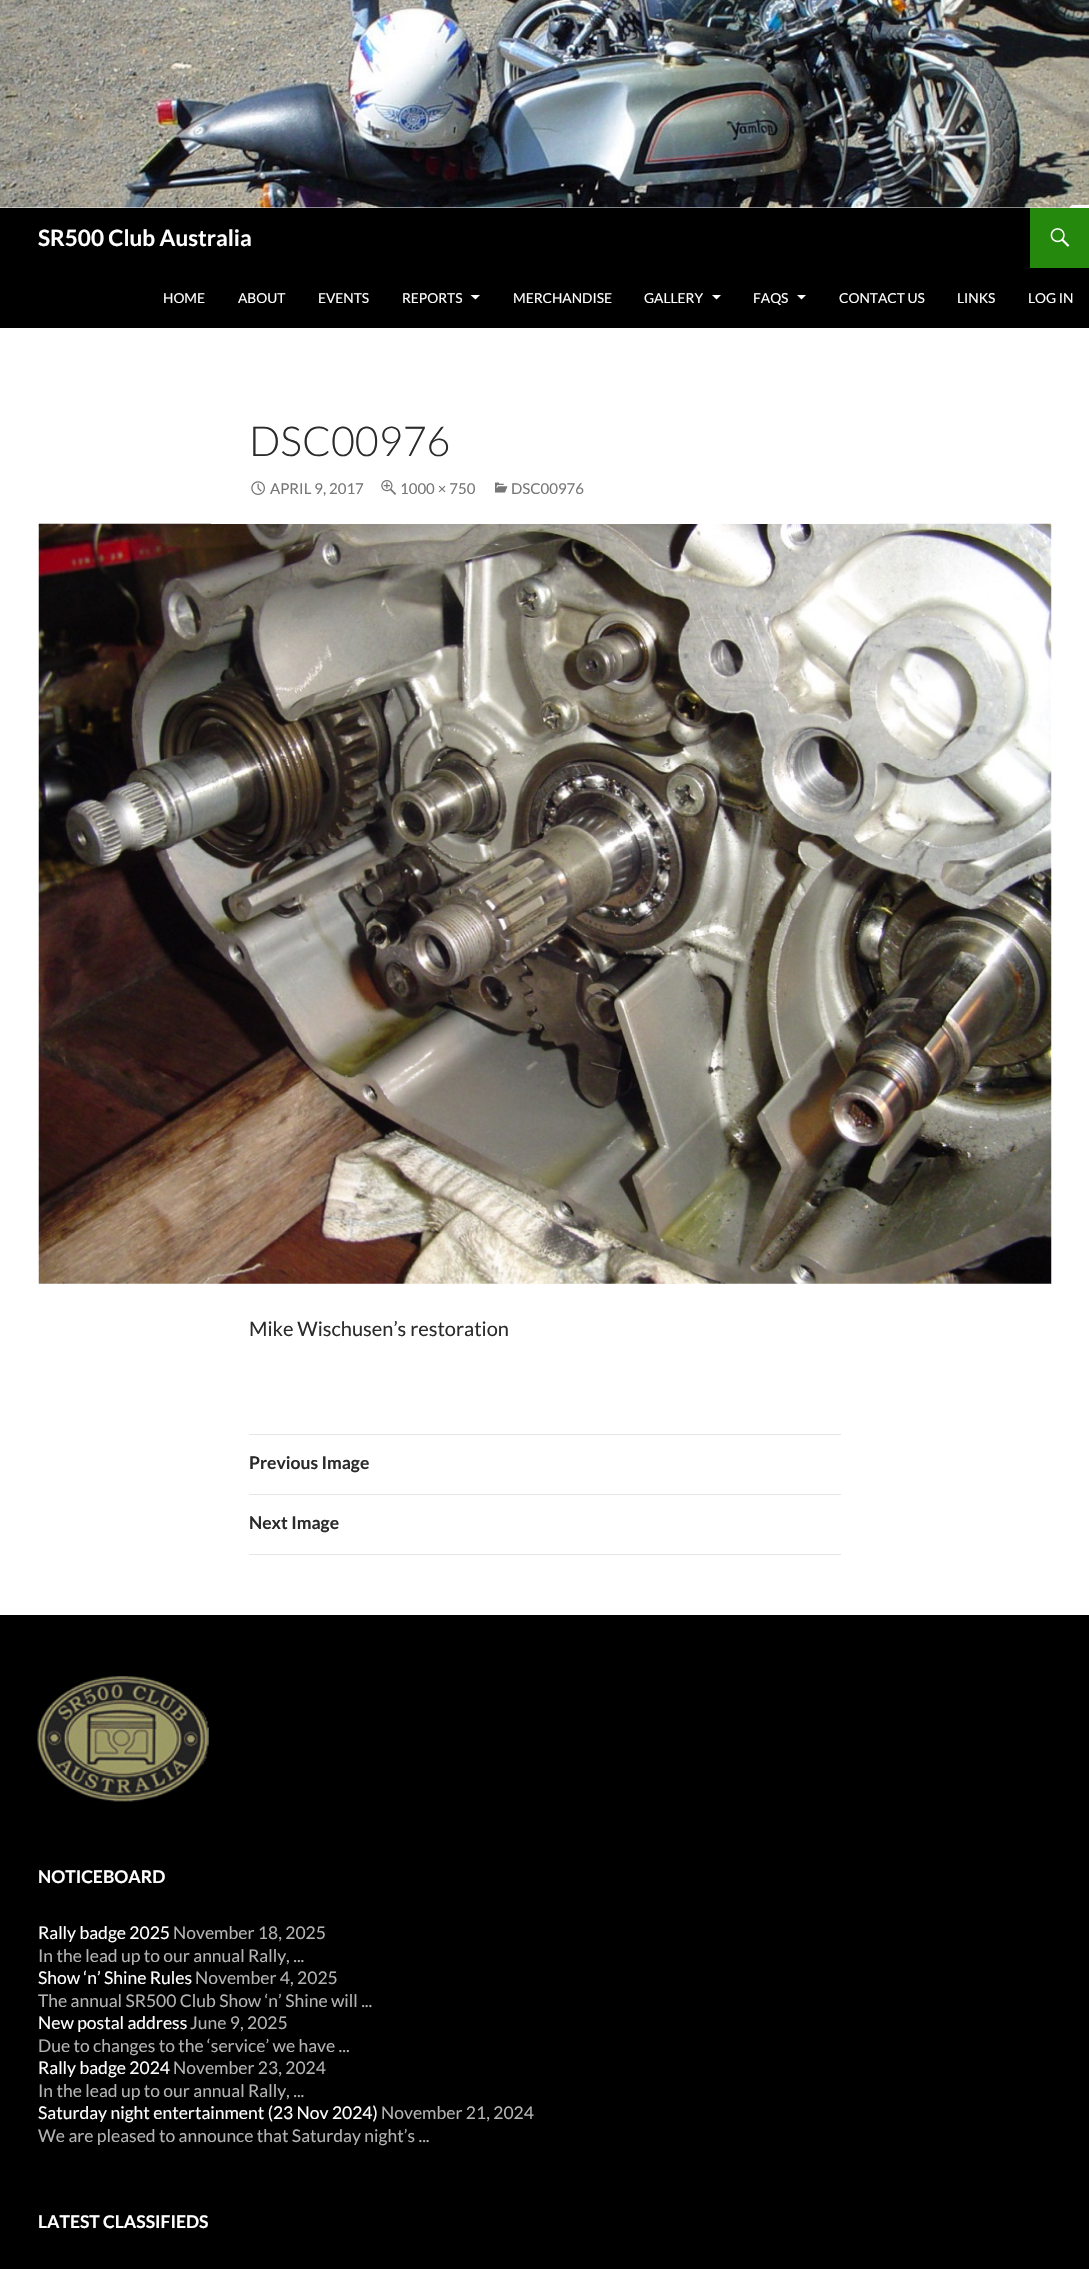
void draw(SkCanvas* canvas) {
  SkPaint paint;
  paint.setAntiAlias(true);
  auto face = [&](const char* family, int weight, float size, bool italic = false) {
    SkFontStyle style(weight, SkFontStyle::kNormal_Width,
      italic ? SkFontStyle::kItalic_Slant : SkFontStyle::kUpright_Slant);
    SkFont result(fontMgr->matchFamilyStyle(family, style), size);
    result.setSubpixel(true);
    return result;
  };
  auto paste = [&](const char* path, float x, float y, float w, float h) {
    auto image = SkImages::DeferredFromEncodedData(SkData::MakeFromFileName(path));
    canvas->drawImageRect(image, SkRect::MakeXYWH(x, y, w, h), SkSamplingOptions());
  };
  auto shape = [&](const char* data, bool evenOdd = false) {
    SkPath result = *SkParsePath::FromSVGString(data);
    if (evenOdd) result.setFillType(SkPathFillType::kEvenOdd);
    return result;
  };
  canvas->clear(0xffffffff);
  paste("img/1.png", 0, 0, 1089, 208);
  paint.setColor(0xff000000);
  canvas->drawRect(SkRect::MakeXYWH(0, 208, 1089, 120), paint);
  paint.setColor(0xff24890d);
  canvas->drawRect(SkRect::MakeXYWH(1030, 208, 59, 60), paint);
  paste("img/2.png", 1050, 228, 20, 19);
  paint.setColor(0xffffffff);
  canvas->drawPath(shape("M470.5 295H480L475.5 299.5Z"), paint);
  canvas->drawPath(shape("M712 295H721L716.5 299.5Z"), paint);
  canvas->drawPath(shape("M797 295H806L801.5 299.5Z"), paint);
  paste("img/6.png", 38, 523, 1014, 761);
  canvas->drawRect(SkRect::MakeXYWH(211, 523, 668, 1), paint);
  paste("img/3.png", 251, 481, 14, 14);
  paste("img/4.png", 381, 480, 16, 15);
  paste("img/5.png", 495, 482, 13, 11);
  {
    const struct { float x, y, w, h; SkColor color; } items[] = {
      {249, 1434, 592, 1, 0xffe6e6e6},
      {249, 1494, 592, 1, 0xffe6e6e6},
      {249, 1554, 592, 1, 0xffe6e6e6},
      {0, 1615, 1089, 654, 0xff000000},
    };
    for (auto [x, y, w, h, color] : items) {
      paint.setColor(color);
      canvas->drawRect(SkRect::MakeXYWH(x, y, w, h), paint);
    }
  }
  paste("img/7.png", 37, 1676, 172, 126);
  auto f0 = face("Lato", 700, 22.5f);
  paint.setColor(0xffffffff);
  canvas->drawString("SR500 Club Australia", 38, 246, f0, paint);
  auto f1 = face("Lato", 400, 13.75f);
  {
    const struct { const char* s; float x, y; } items[] = {
      {"HOME", 163, 303},
      {"ABOUT", 238, 303},
      {"EVENTS", 318, 303},
      {"REPORTS", 402, 303},
      {"MERCHANDISE", 513, 303},
      {"GALLERY", 644, 303},
      {"FAQS", 753, 303},
      {"CONTACT US", 839, 303},
      {"LINKS", 957, 303},
      {"LOG IN", 1028, 303},
    };
    for (auto [s, x, y] : items) {
      canvas->drawString(s, x, y, f1, paint);
    }
  }
  auto f2 = face("Lato", 300, 41.25f);
  paint.setColor(0xff2b2b2b);
  canvas->drawString("DSC00976", 249, 456, f2, paint);
  auto f3 = face("Lato", 400, 15);
  paint.setColor(0xff767676);
  {
    const struct { const char* s; float x, y; } items[] = {
      {"APRIL 9, 2017", 270, 494},
      {"1000 × 750", 400, 494},
      {"DSC00976", 511, 494},
    };
    for (auto [s, x, y] : items) {
      canvas->drawString(s, x, y, f3, paint);
    }
  }
  auto f4 = face("Lato", 400, 20);
  paint.setColor(0xff2b2b2b);
  canvas->drawString("Mike Wischusen’s restoration", 249, 1336, f4, paint);
  auto f5 = face("Lato", 700, 17.5f);
  canvas->drawString("Previous Image", 249, 1469, f5, paint);
  canvas->drawString("Next Image", 249, 1529, f5, paint);
  paint.setColor(0xffffffff);
  canvas->drawString("NOTICEBOARD", 38, 1883, f5, paint);
  auto f6 = face("Lato", 400, 17.5f);
  canvas->drawString("Rally badge 2025", 38, 1939, f6, paint);
  paint.setColor(0xffb3b3b3);
  canvas->drawString("November 18, 2025", 173, 1939, f6, paint);
  canvas->drawString("In the lead up to our annual Rally, ...", 38, 1962, f6, paint);
  paint.setColor(0xffffffff);
  canvas->drawString("Show ‘n’ Shine Rules", 38, 1984, f6, paint);
  paint.setColor(0xffb3b3b3);
  canvas->drawString("November 4, 2025", 195, 1984, f6, paint);
  canvas->drawString("The annual SR500 Club Show ‘n’ Shine will ...", 38, 2007, f6, paint);
  paint.setColor(0xffffffff);
  canvas->drawString("New postal address", 38, 2029, f6, paint);
  paint.setColor(0xffb3b3b3);
  canvas->drawString("June 9, 2025", 190, 2029, f6, paint);
  canvas->drawString("Due to changes to the ‘service’ we have ...", 38, 2052, f6, paint);
  paint.setColor(0xffffffff);
  canvas->drawString("Rally badge 2024", 38, 2074, f6, paint);
  paint.setColor(0xffb3b3b3);
  canvas->drawString("November 23, 2024", 173, 2074, f6, paint);
  canvas->drawString("In the lead up to our annual Rally, ...", 38, 2097, f6, paint);
  paint.setColor(0xffffffff);
  canvas->drawString("Saturday night entertainment (23 Nov 2024)", 38, 2119, f6, paint);
  paint.setColor(0xffb3b3b3);
  canvas->drawString("November 21, 2024", 381, 2119, f6, paint);
  canvas->drawString("We are pleased to announce that Saturday night’s ...", 38, 2142, f6, paint);
  paint.setColor(0xffffffff);
  canvas->drawString("LATEST CLASSIFIEDS", 38, 2228, f5, paint);
}
